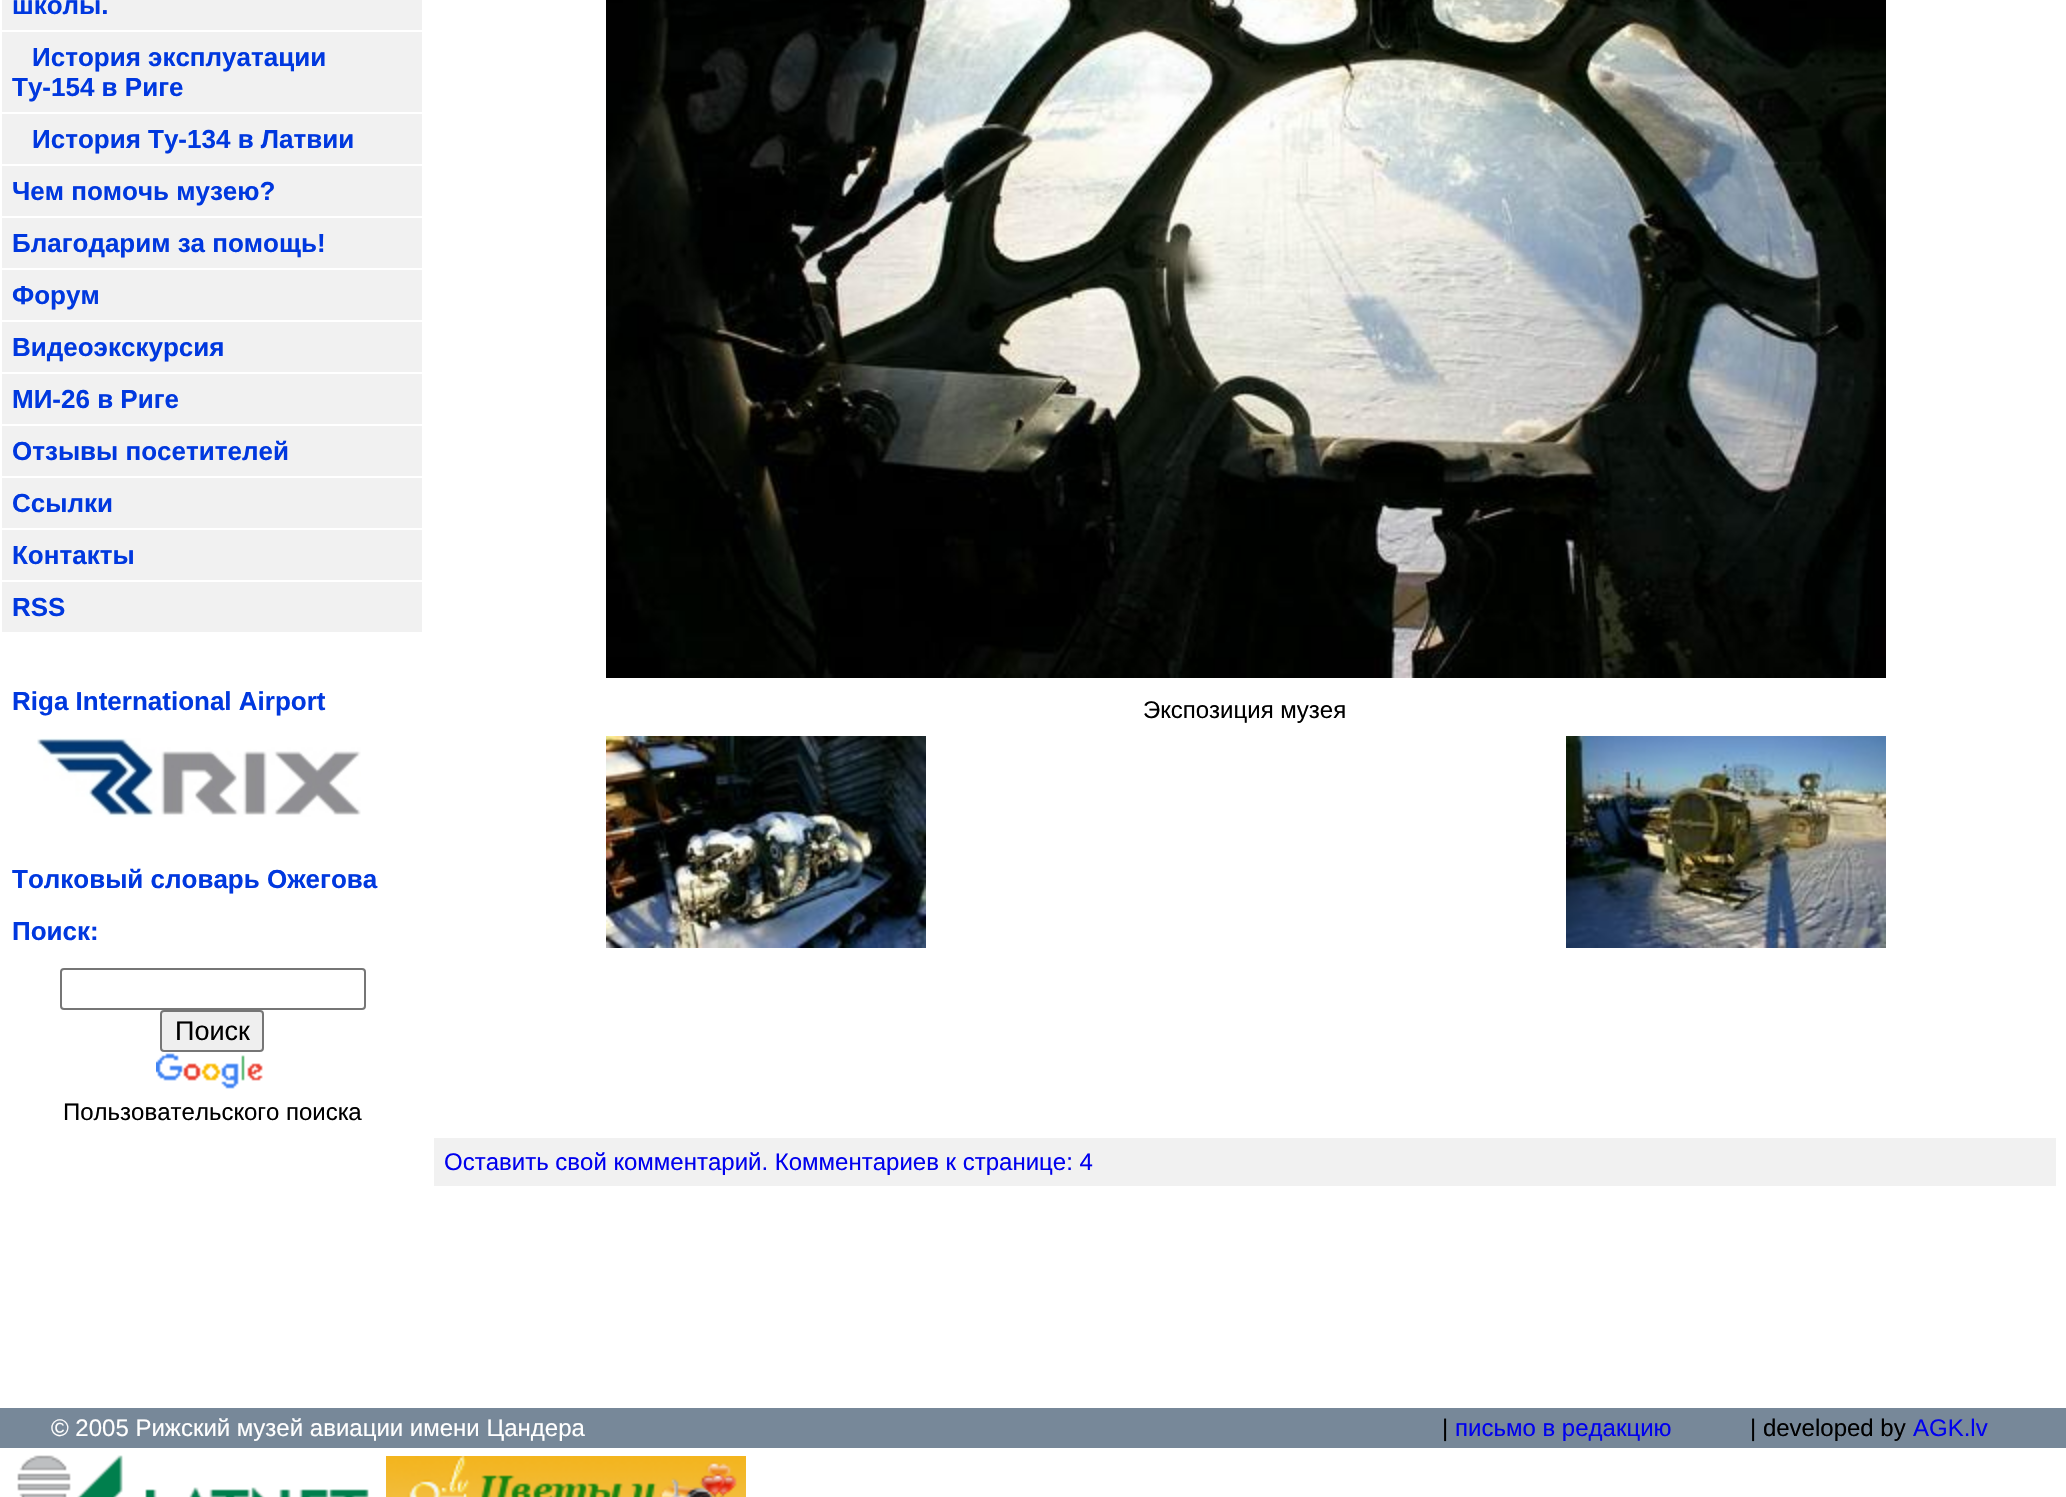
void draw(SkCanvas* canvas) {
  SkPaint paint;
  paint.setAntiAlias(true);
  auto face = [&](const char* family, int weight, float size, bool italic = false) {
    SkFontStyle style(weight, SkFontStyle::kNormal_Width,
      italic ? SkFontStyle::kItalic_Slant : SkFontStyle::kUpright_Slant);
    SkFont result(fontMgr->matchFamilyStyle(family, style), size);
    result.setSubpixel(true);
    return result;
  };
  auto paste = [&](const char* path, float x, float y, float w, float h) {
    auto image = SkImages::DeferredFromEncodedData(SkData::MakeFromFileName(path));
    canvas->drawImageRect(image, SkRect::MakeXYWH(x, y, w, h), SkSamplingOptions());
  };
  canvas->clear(0xffffffff);
  {
    const struct { float x, y, w, h; SkColor color; } items[] = {
      {2, 0, 420, 30, 0xfff1f1f1},
      {2, 32, 420, 80, 0xfff1f1f1},
      {2, 114, 420, 50, 0xfff1f1f1},
      {2, 166, 420, 50, 0xfff1f1f1},
      {2, 218, 420, 50, 0xfff1f1f1},
      {2, 270, 420, 50, 0xfff1f1f1},
      {2, 322, 420, 50, 0xfff1f1f1},
      {2, 374, 420, 50, 0xfff1f1f1},
      {2, 426, 420, 50, 0xfff1f1f1},
      {2, 478, 420, 50, 0xfff1f1f1},
      {2, 530, 420, 50, 0xfff1f1f1},
      {2, 582, 420, 50, 0xfff1f1f1},
    };
    for (auto [x, y, w, h, color] : items) {
      paint.setColor(color);
      canvas->drawRect(SkRect::MakeXYWH(x, y, w, h), paint);
    }
  }
  paste("img/1.png", 37, 738, 324, 79);
  paint.setStroke(true);
  paint.setStrokeWidth(2);
  paint.setColor(0xff767676);
  canvas->drawRoundRect(SkRect::MakeXYWH(61, 969, 304, 40), 3, 3, paint);
  paint.setStroke(false);
  paint.setColor(0xffefefef);
  canvas->drawRoundRect(SkRect::MakeXYWH(161, 1011, 102, 40), 3, 3, paint);
  paint.setStroke(true);
  paint.setColor(0xff767676);
  canvas->drawRoundRect(SkRect::MakeXYWH(161, 1011, 102, 40), 3, 3, paint);
  paste("img/2.png", 156, 1053, 107, 36);
  paste("img/3.png", 606, 0, 1280, 678);
  paste("img/4.png", 606, 736, 320, 212);
  paste("img/5.png", 1566, 736, 320, 212);
  paint.setStroke(false);
  paint.setColor(0xfff1f1f1);
  canvas->drawRect(SkRect::MakeXYWH(434, 1138, 1622, 48), paint);
  paint.setColor(0xff778899);
  canvas->drawRect(SkRect::MakeXYWH(0, 1408, 2066, 40), paint);
  paste("img/6.png", 17, 1455, 352, 42);
  paste("img/7.png", 386, 1456, 360, 41);
  auto f0 = face("Liberation Sans", 700, 26);
  paint.setColor(0xff0038df);
  {
    const struct { const char* s; float x, y; } items[] = {
      {"школы.", 12, 14},
      {"История эксплуатации", 32, 66},
      {"Ту-154 в Риге", 12, 96},
      {"История Ту-134 в Латвии", 32, 148},
      {"Чем помочь музею?", 12, 200},
      {"Благодарим за помощь!", 12, 252},
      {"Форум", 12, 304},
      {"Видеоэкскурсия", 12, 356},
      {"МИ-26 в Риге", 12, 408},
      {"Отзывы посетителей", 12, 460},
      {"Ссылки", 12, 512},
      {"Контакты", 12, 564},
      {"RSS", 12, 616},
      {"Riga International Airport", 12, 710},
      {"Толковый словарь Ожегова", 12, 888},
      {"Поиск:", 12, 940},
    };
    for (auto [s, x, y] : items) {
      canvas->drawString(s, x, y, f0, paint);
    }
  }
  auto f1 = face("Liberation Sans", 400, 27);
  paint.setColor(0xff000000);
  canvas->drawString("Поиск", 175, 1040, f1, paint);
  auto f2 = face("Liberation Sans", 400, 24);
  canvas->drawString("Пользовательского поиска", 63, 1120, f2, paint);
  canvas->drawString("Экспозиция музея", 1143, 718, f2, paint);
  paint.setColor(0xff0000ee);
  canvas->drawString("Оставить свой комментарий. Комментариев к странице: 4", 444, 1170, f2, paint);
  paint.setColor(0xffffffff);
  canvas->drawString("© 2005 Рижский музей авиации имени Цандера", 51, 1436, f2, paint);
  paint.setColor(0xff000000);
  canvas->drawString("|", 1442, 1436, f2, paint);
  paint.setColor(0xff0000ee);
  canvas->drawString("письмо в редакцию", 1455, 1436, f2, paint);
  paint.setColor(0xff000000);
  canvas->drawString("| developed by", 1750, 1436, f2, paint);
  paint.setColor(0xff0000ee);
  canvas->drawString("AGK.lv", 1913, 1436, f2, paint);
}
